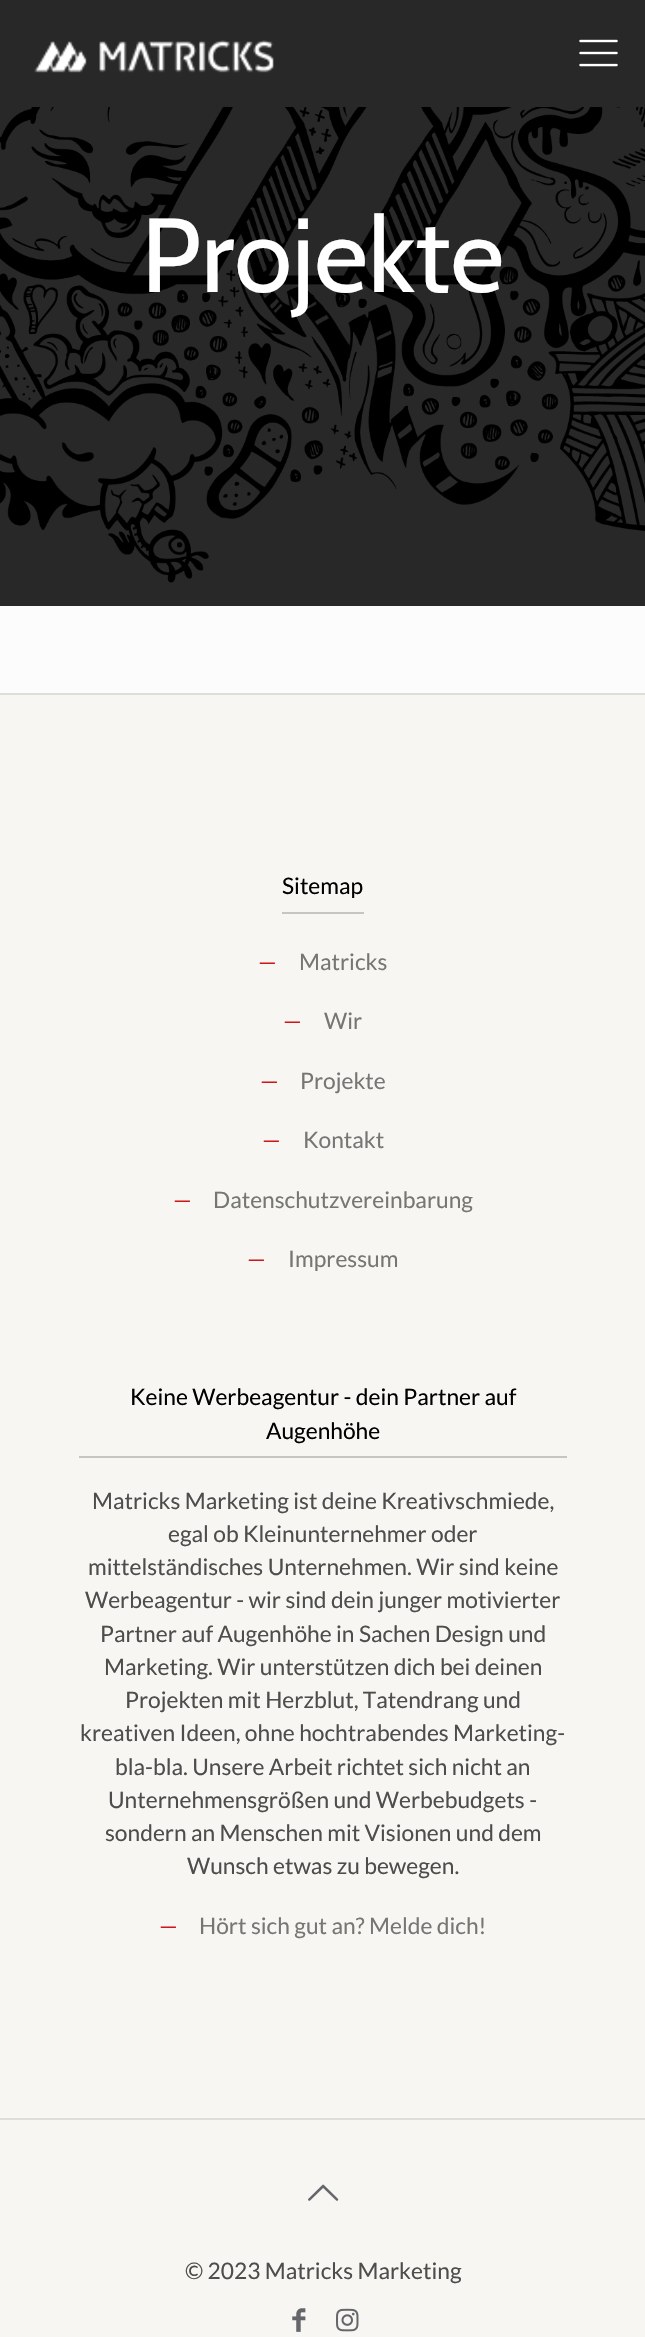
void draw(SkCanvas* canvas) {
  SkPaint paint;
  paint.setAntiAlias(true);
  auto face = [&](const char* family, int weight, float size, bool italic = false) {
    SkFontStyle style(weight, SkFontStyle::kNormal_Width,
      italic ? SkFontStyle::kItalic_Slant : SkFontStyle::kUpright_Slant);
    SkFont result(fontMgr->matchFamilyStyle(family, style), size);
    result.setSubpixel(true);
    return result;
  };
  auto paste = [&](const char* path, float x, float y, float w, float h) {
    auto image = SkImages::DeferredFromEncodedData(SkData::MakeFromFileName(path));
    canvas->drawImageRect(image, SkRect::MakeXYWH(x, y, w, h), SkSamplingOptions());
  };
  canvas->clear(0xfffcfcfc);
  paint.setColor(0xff282828);
  canvas->drawRect(SkRect::MakeXYWH(0, 0, 645, 606), paint);
  paste("img/1.png", 34, 40, 240, 33);
  paste("img/2.png", 579, 39, 39, 28);
  paste("img/3.png", 0, 107, 645, 476);
  {
    const struct { float x, y, w, h; SkColor color; } items[] = {
      {0, 695, 645, 1642, 0xfff7f6f2},
      {0, 693, 645, 2, 0xffdeddd9},
      {282, 912, 82, 2, 0xffc6c5c2},
      {79, 1456, 488, 2, 0xffc6c5c2},
      {0, 2118, 645, 2, 0xffdeddda},
    };
    for (auto [x, y, w, h, color] : items) {
      paint.setColor(color);
      canvas->drawRect(SkRect::MakeXYWH(x, y, w, h), paint);
    }
  }
  paste("img/4.png", 308, 2184, 31, 17);
  paste("img/5.png", 292, 2308, 14, 24);
  paste("img/6.png", 336, 2308, 23, 24);
  auto f0 = face("Cabin", 400, 105);
  paint.setColor(0xffffffff);
  canvas->drawString("Projekte", 141, 292, f0, paint);
  auto f1 = face("Lato", 400, 22.75f);
  paint.setColor(0xff000000);
  canvas->drawString("Sitemap", 282, 894, f1, paint);
  paint.setColor(0xffcd1719);
  canvas->drawString("—", 258, 970, f1, paint);
  paint.setColor(0xff767675);
  canvas->drawString("Matricks", 299, 970, f1, paint);
  paint.setColor(0xffcd1719);
  canvas->drawString("—", 283, 1029, f1, paint);
  paint.setColor(0xff767675);
  canvas->drawString("Wir", 324, 1029, f1, paint);
  paint.setColor(0xffcd1719);
  canvas->drawString("—", 260, 1089, f1, paint);
  paint.setColor(0xff767675);
  canvas->drawString("Projekte", 300, 1089, f1, paint);
  paint.setColor(0xffcd1719);
  canvas->drawString("—", 262, 1148, f1, paint);
  paint.setColor(0xff767675);
  canvas->drawString("Kontakt", 303, 1148, f1, paint);
  paint.setColor(0xffcd1719);
  canvas->drawString("—", 173, 1208, f1, paint);
  paint.setColor(0xff767675);
  canvas->drawString("Datenschutzvereinbarung", 213, 1208, f1, paint);
  paint.setColor(0xffcd1719);
  canvas->drawString("—", 247, 1267, f1, paint);
  paint.setColor(0xff767675);
  canvas->drawString("Impressum", 288, 1267, f1, paint);
  paint.setColor(0xff000000);
  canvas->drawString("Keine Werbeagentur - dein Partner auf", 130, 1405, f1, paint);
  canvas->drawString("Augenhöhe", 266, 1439, f1, paint);
  paint.setColor(0xff4d4d4d);
  {
    const struct { const char* s; float x, y; } items[] = {
      {"Matricks Marketing ist deine Kreativschmiede,", 92, 1509},
      {"egal ob Kleinunternehmer oder", 168, 1542},
      {"mittelständisches Unternehmen. Wir sind keine", 88, 1575},
      {"Werbeagentur - wir sind dein junger motivierter", 85, 1608},
      {"Partner auf Augenhöhe in Sachen Design und", 100, 1642},
      {"Marketing. Wir unterstützen dich bei deinen", 104, 1675},
      {"Projekten mit Herzblut, Tatendrang und", 125, 1708},
      {"kreativen Ideen, ohne hochtrabendes Marketing-", 80, 1741},
      {"bla-bla. Unsere Arbeit richtet sich nicht an", 115, 1775},
      {"Unternehmensgrößen und Werbebudgets -", 108, 1808},
      {"sondern an Menschen mit Visionen und dem", 105, 1841},
      {"Wunsch etwas zu bewegen.", 187, 1874},
    };
    for (auto [s, x, y] : items) {
      canvas->drawString(s, x, y, f1, paint);
    }
  }
  paint.setColor(0xffcd1719);
  canvas->drawString("—", 159, 1934, f1, paint);
  paint.setColor(0xff767675);
  canvas->drawString("Hört sich gut an? Melde dich!", 199, 1934, f1, paint);
  paint.setColor(0xff4d4d4d);
  canvas->drawString("© 2023 Matricks Marketing", 185, 2279, f1, paint);
}
